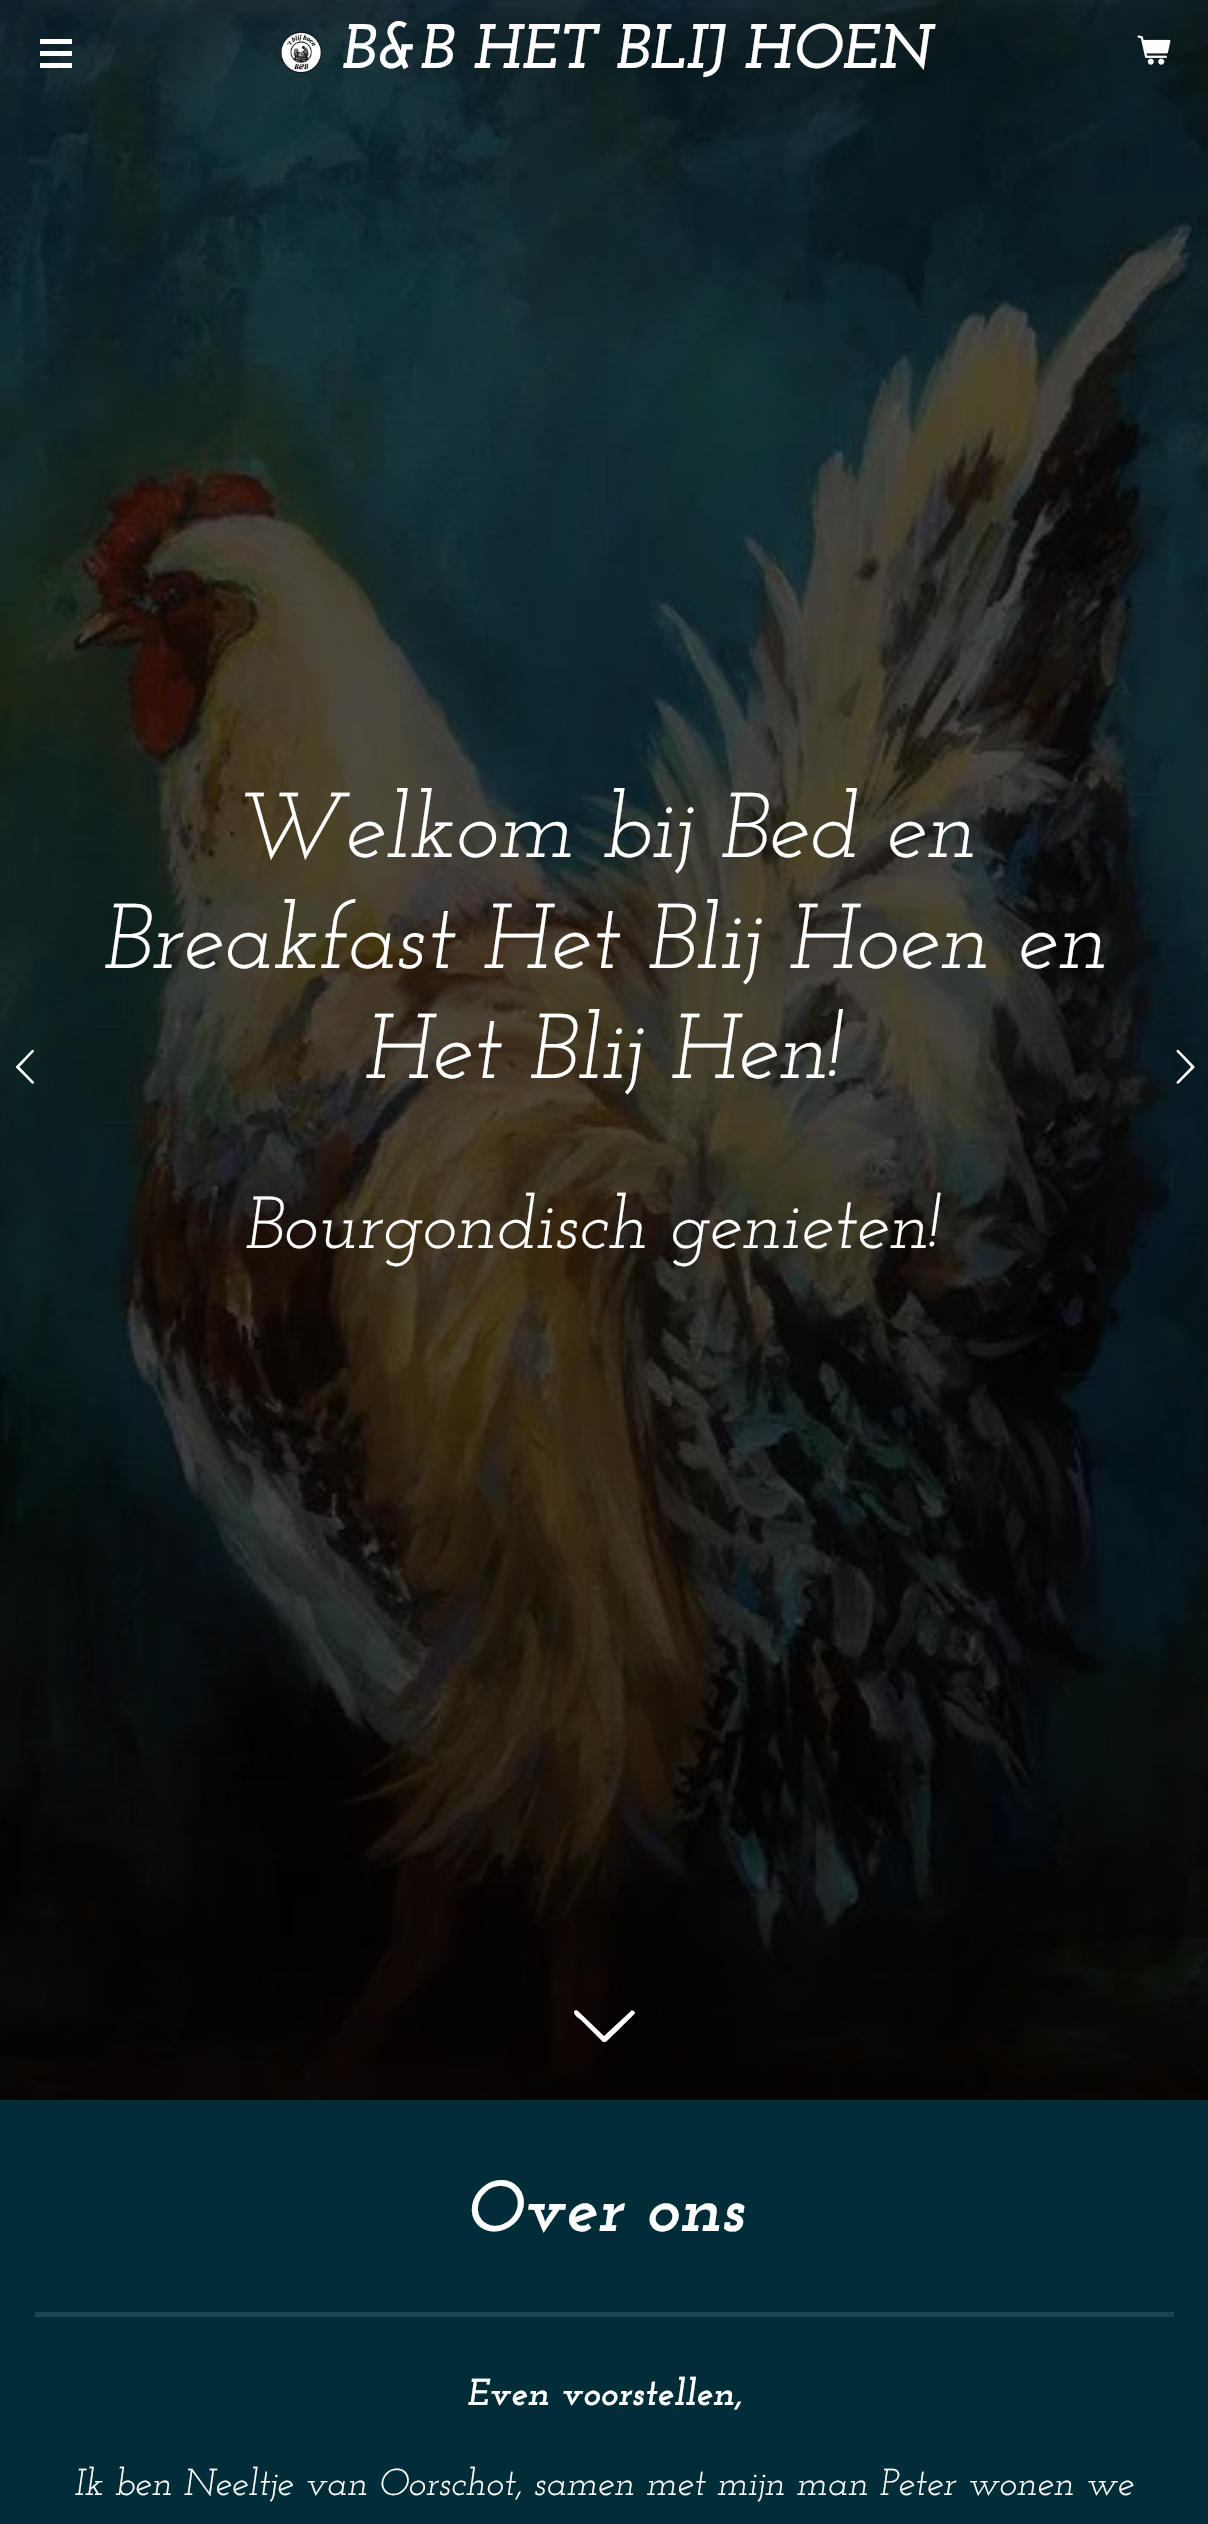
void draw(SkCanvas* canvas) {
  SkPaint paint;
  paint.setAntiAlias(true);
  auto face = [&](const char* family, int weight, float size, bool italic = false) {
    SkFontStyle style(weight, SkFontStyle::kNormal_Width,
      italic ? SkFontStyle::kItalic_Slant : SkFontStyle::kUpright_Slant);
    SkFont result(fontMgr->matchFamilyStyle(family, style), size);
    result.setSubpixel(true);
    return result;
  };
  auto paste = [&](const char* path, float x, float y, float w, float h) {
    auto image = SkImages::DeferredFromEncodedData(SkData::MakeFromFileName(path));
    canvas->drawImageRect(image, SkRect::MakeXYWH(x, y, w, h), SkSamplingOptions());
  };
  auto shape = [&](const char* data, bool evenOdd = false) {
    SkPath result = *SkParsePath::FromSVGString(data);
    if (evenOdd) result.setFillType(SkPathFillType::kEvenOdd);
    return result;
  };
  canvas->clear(0xff002d37);
  paste("img/3.png", 0, 0, 1208, 2100);
  {
    const struct { float x, y, w, h; SkColor color; } items[] = {
      {40, 51, 32, 5, 0xffffffff},
      {40, 39, 32, 5, 0xffffffff},
      {40, 63, 32, 5, 0xffffffff},
    };
    for (auto [x, y, w, h, color] : items) {
      paint.setColor(color);
      canvas->drawRect(SkRect::MakeXYWH(x, y, w, h), paint);
    }
  }
  paste("img/1.png", 280, 32, 42, 42);
  paste("img/2.png", 1137, 35, 34, 30);
  canvas->drawPath(shape("M33.5 1081.5L34 1082.5C33 1086 29.5 1081 29 1080.5L16 1067.5V1066.5L32 1050H33C36 1050.5 31.5 1054 31 1054.5L19.5 1067Z"), paint);
  canvas->drawPath(shape("M1177 1081.5L1191 1067L1179.5 1054.5C1179 1054 1174.5 1050.5 1177.5 1050H1178.5L1194.5 1066.5V1067.5L1181.5 1080.5C1181 1081 1177.5 1086 1176.5 1082.5Z"), paint);
  canvas->drawPath(shape("M578 2011L604 2036L631 2011C632 2010 635 2011 635 2013C635 2014 608 2040 606 2042H603L580 2019C579 2019 570 2012 576 2010Z"), paint);
  paint.setColor(0xff1c444d);
  canvas->drawRect(SkRect::MakeXYWH(35, 2312, 1139, 5), paint);
  auto f0 = face("Josefin Slab", 700, 63, true);
  paint.setColor(0xffffffff);
  canvas->drawString("B&B HET BLIJ HOEN", 341, 68, f0, paint);
  auto f1 = face("Josefin Slab", 400, 91.9f, true);
  {
    const struct { const char* s; float x, y; } items[] = {
      {"Welkom bij Bed en", 233, 857},
      {"Breakfast Het Blij Hoen en", 102, 968},
      {"Het Blij Hen!", 363, 1078},
    };
    for (auto [s, x, y] : items) {
      canvas->drawString(s, x, y, f1, paint);
    }
  }
  auto f2 = face("Josefin Slab", 400, 73.5f, true);
  canvas->drawString("Bourgondisch genieten!", 244, 1248, f2, paint);
  auto f3 = face("Josefin Slab", 700, 72, true);
  canvas->drawString("Over ons", 466, 2231, f3, paint);
  auto f4 = face("Josefin Slab", 700, 37.6f, true);
  canvas->drawString("Even voorstellen,", 467, 2405, f4, paint);
  auto f5 = face("Josefin Slab", 400, 37.6f, true);
  canvas->drawString("Ik ben Neeltje van Oorschot, samen met mijn man Peter wonen we", 74, 2495, f5, paint);
}
